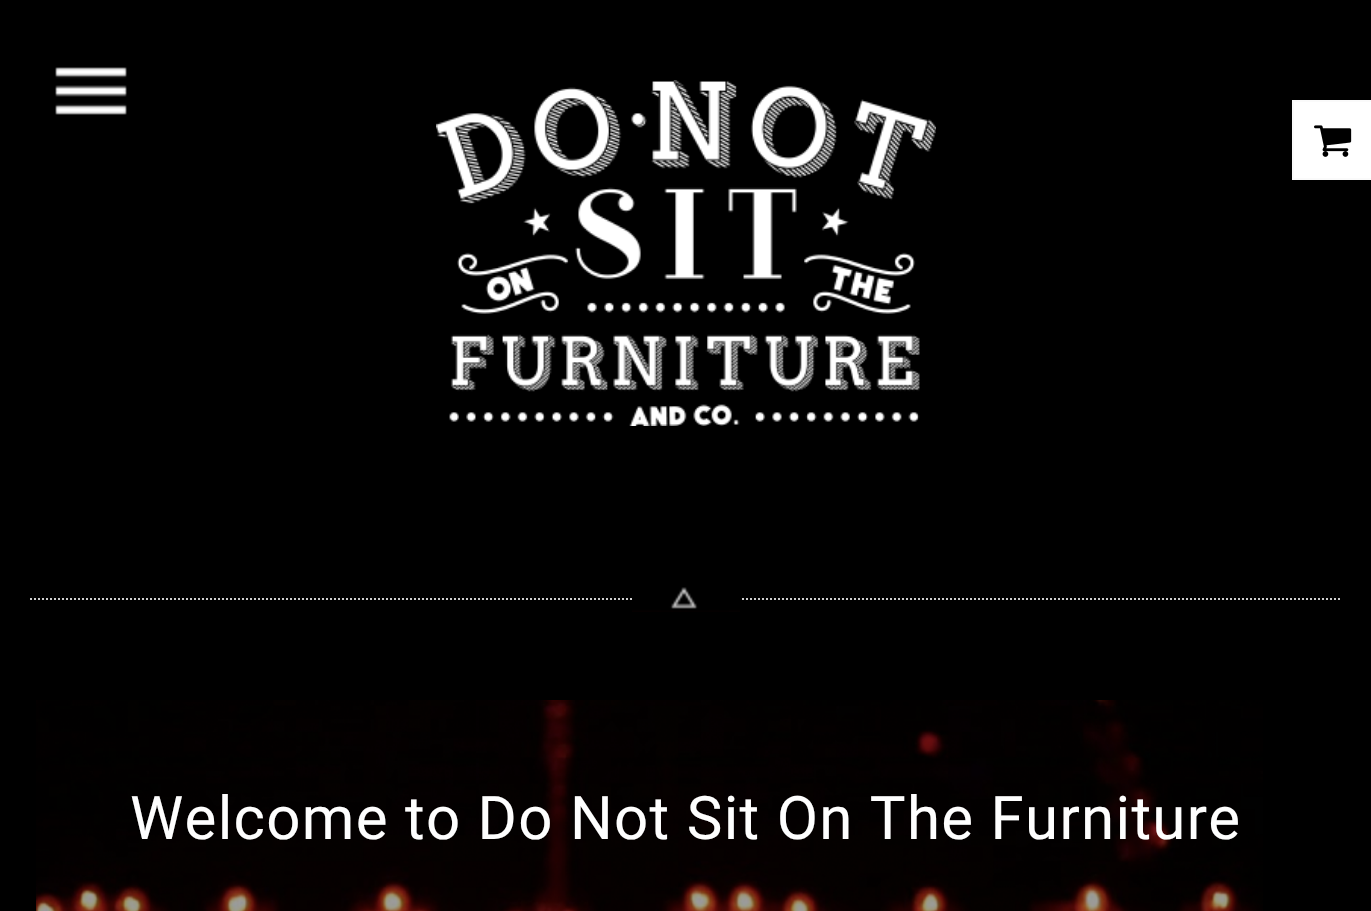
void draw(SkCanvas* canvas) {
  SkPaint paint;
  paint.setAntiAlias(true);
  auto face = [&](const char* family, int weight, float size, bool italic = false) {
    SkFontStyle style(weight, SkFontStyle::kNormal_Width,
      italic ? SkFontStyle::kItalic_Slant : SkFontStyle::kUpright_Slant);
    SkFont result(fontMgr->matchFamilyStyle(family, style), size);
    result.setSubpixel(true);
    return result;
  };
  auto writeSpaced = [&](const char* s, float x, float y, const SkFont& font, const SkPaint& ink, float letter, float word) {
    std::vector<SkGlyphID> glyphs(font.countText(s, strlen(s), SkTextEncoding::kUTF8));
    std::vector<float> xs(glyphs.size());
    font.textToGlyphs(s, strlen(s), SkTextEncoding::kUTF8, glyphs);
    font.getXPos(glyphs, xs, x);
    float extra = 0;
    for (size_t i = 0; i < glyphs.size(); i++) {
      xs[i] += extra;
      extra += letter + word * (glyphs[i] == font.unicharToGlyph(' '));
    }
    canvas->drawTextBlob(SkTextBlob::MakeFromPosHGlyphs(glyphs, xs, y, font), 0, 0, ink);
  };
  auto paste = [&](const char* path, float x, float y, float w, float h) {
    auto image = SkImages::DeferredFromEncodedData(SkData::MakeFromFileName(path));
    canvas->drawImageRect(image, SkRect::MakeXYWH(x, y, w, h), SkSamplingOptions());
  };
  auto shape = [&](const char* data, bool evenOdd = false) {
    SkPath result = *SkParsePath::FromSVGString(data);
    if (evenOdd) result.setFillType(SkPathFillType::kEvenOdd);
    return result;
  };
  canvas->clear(0xff000000);
  paint.setColor(0xffffffff);
  canvas->drawRect(SkRect::MakeXYWH(1292, 100, 79, 80), paint);
  paint.setColor(0xfffafafa);
  canvas->drawPath(shape("M1292 100H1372V102H1294Z"), paint);
  canvas->drawPath(shape("M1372 180H1292L1294 178H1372Z"), paint);
  paint.setColor(0x61f1f1f1);
  canvas->drawPath(shape("M1292 180V100L1294 102V178Z"), paint);
  paste("img/1.png", 1314, 125, 38, 32);
  paste("img/2.png", 55, 67, 72, 48);
  paint.setStroke(true);
  paint.setStrokeWidth(2);
  paint.setColor(0xffcfcfcf);
  paint.setPathEffect(SkDashPathEffect::Make({{2, 2}}, 0));
  canvas->drawPath(shape("M30 599H1342"), paint);
  paint.setPathEffect(nullptr);
  paste("img/3.png", 436, 80, 500, 346);
  paste("img/4.png", 632, 587, 108, 25);
  paste("img/5.png", 36, 700, 1227, 211);
  auto f0 = face("Roboto", 400, 60);
  paint.setStroke(false);
  paint.setColor(0xfffefefe);
  writeSpaced("Welcome to Do Not Sit On The Furniture", 130, 839, f0, paint, 1.3f, 0);
}
